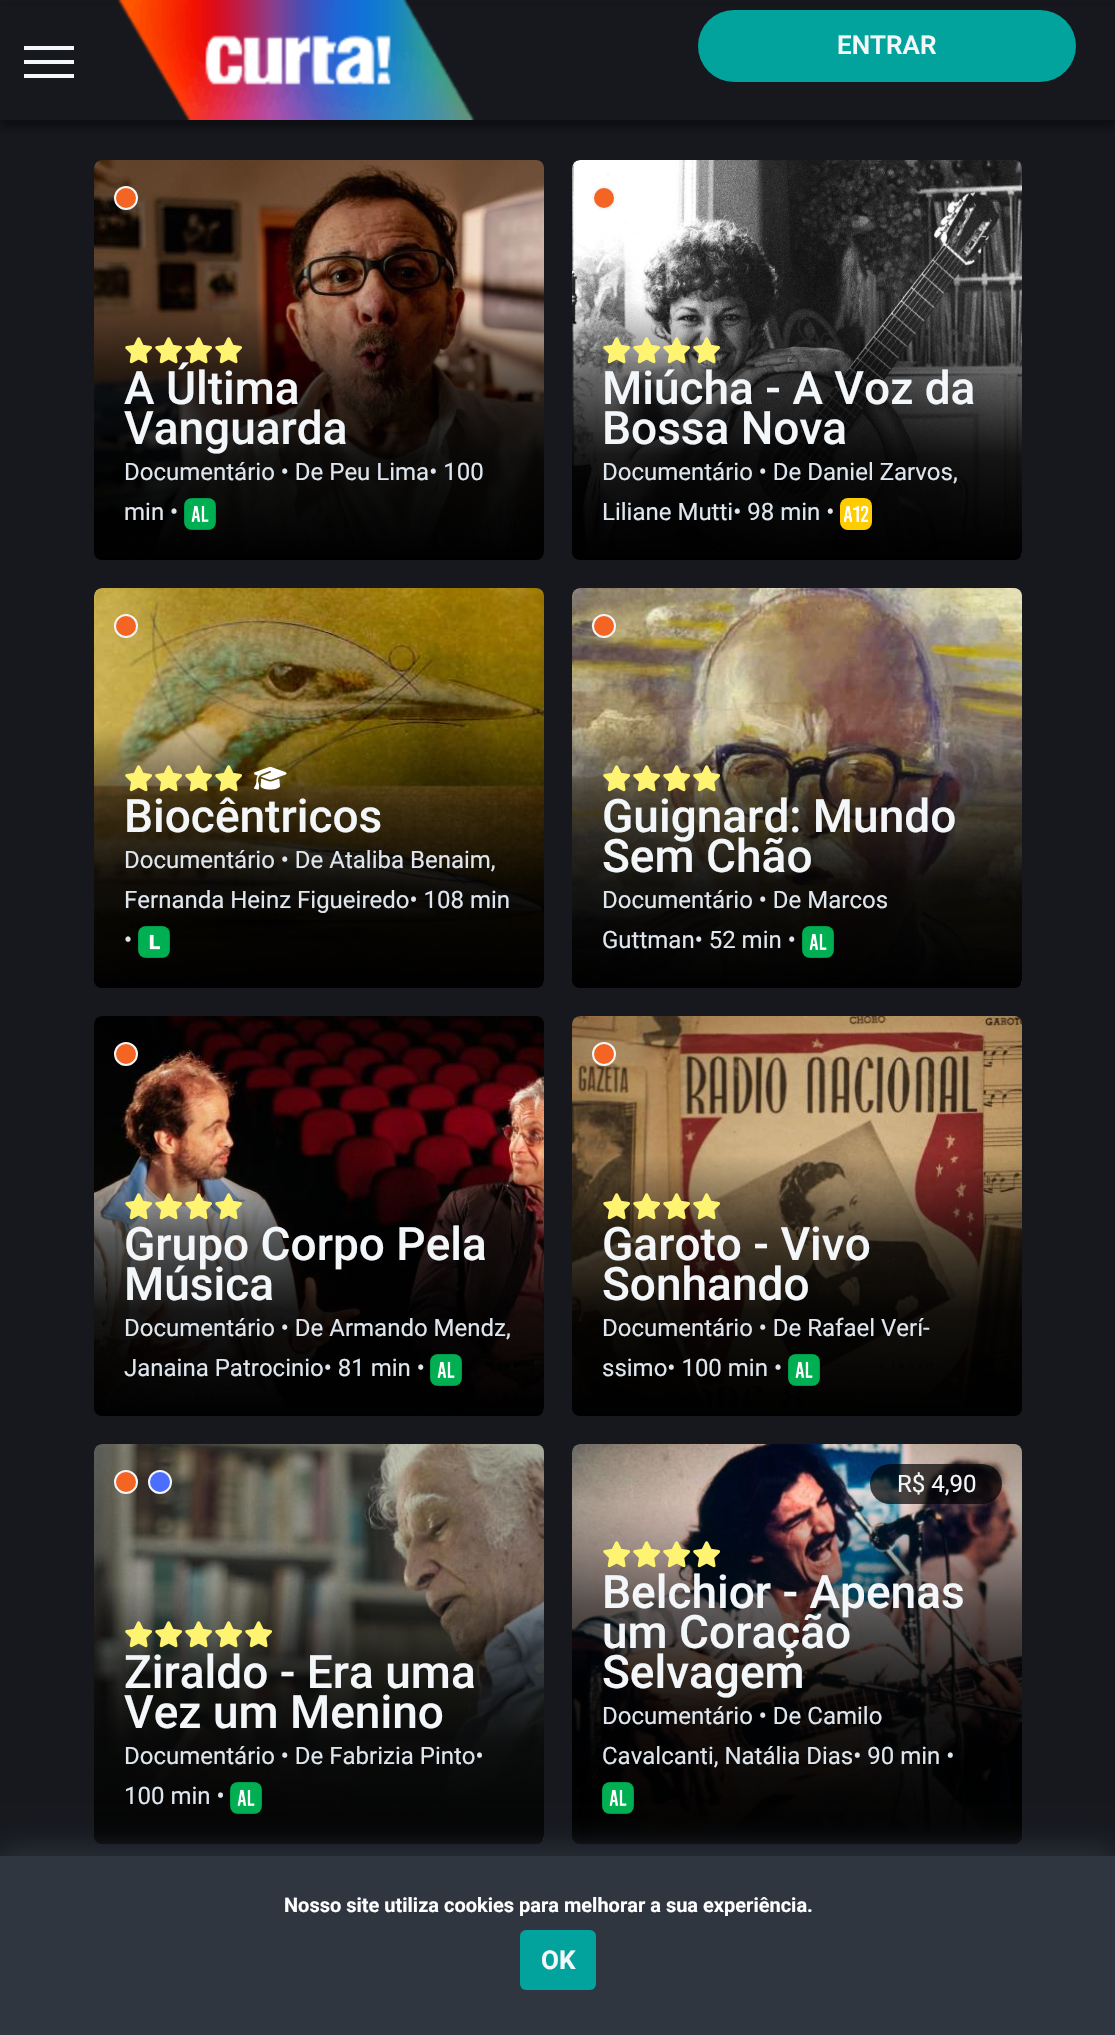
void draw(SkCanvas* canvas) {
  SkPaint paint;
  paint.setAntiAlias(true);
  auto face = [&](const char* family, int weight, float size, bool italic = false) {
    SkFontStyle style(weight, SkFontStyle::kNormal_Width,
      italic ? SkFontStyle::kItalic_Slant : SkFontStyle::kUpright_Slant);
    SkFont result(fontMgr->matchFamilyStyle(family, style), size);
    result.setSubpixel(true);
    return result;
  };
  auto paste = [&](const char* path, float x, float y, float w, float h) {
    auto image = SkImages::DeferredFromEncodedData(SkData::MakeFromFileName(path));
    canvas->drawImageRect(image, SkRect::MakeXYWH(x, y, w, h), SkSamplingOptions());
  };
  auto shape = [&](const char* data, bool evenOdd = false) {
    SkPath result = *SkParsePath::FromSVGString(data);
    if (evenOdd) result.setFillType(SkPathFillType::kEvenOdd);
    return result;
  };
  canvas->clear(0xff16181e);
  paint.setColor(0x66000000);
  paint.setMaskFilter(SkMaskFilter::MakeBlur(kNormal_SkBlurStyle, 4));
  canvas->drawRect(SkRect::MakeXYWH(0, 8, 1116, 120), paint);
  paint.setMaskFilter(nullptr);
  {
    const struct { float x, y, w, h; SkColor color; } items[] = {
      {0, 5, 1115, 115, 0xff16181e},
      {24, 46, 50, 4, 0xfff4f7fa},
      {24, 60, 50, 4, 0xfff4f7fa},
      {24, 74, 50, 4, 0xfff4f7fa},
    };
    for (auto [x, y, w, h, color] : items) {
      paint.setColor(color);
      canvas->drawRect(SkRect::MakeXYWH(x, y, w, h), paint);
    }
  }
  paste("img/1.png", 117, 0, 358, 120);
  paint.setColor(0xff01a39c);
  canvas->drawRoundRect(SkRect::MakeXYWH(698, 10, 378, 72), 36, 36, paint);
  paste("img/2.png", 94, 160, 450, 396);
  paint.setColor(0xfff46524);
  canvas->drawCircle(126, 198, 11, paint);
  paint.setStroke(true);
  paint.setStrokeWidth(2);
  paint.setColor(0xfff4f7fa);
  canvas->drawCircle(126, 198, 11, paint);
  paint.setStroke(false);
  {
    const SkColor colors[] = {0x00000000, 0x99000000, 0xe6000000, 0xff000000};
    const float stops[] = {0, 0.3f, 0.6f, 1};
    const SkPoint ends[] = {{319, 300}, {319, 560}};
    paint.setShader(SkGradientShader::MakeLinear(ends, colors, stops, 4, SkTileMode::kClamp));
    paint.setAlpha(255);
  }
  canvas->drawPath(shape("M94 300H544V552C544 556.5 540.5 560 536 560H102C97.5 560 94 556.5 94 552Z"), paint);
  paste("img/3.png", 125, 337, 27, 27);
  paste("img/4.png", 155, 337, 27, 27);
  paste("img/5.png", 185, 337, 27, 27);
  paste("img/6.png", 215, 337, 27, 27);
  paste("img/7.png", 184, 498, 32, 32);
  paste("img/8.png", 572, 160, 450, 396);
  paint.setShader(nullptr);
  paint.setColor(0xfff46524);
  canvas->drawCircle(604, 198, 11, paint);
  paint.setStroke(true);
  paint.setColor(0xfff4f7fa);
  canvas->drawCircle(604, 198, 11, paint);
  paint.setStroke(false);
  {
    const SkColor colors[] = {0x00000000, 0x99000000, 0xe6000000, 0xff000000};
    const float stops[] = {0, 0.3f, 0.6f, 1};
    const SkPoint ends[] = {{797, 300}, {797, 560}};
    paint.setShader(SkGradientShader::MakeLinear(ends, colors, stops, 4, SkTileMode::kClamp));
    paint.setAlpha(255);
  }
  canvas->drawPath(shape("M572 300H1022V552C1022 556.5 1018.5 560 1014 560H580C575.5 560 572 556.5 572 552Z"), paint);
  paste("img/9.png", 603, 337, 27, 27);
  paste("img/10.png", 633, 337, 27, 27);
  paste("img/11.png", 663, 337, 27, 27);
  paste("img/12.png", 693, 337, 27, 27);
  paste("img/13.png", 840, 498, 32, 32);
  paste("img/14.png", 94, 588, 450, 396);
  paint.setShader(nullptr);
  paint.setColor(0xfff46524);
  canvas->drawCircle(126, 626, 11, paint);
  paint.setStroke(true);
  paint.setColor(0xfff4f7fa);
  canvas->drawCircle(126, 626, 11, paint);
  paint.setStroke(false);
  {
    const SkColor colors[] = {0x00000000, 0x99000000, 0xe6000000, 0xff000000};
    const float stops[] = {0, 0.3f, 0.6f, 1};
    const SkPoint ends[] = {{319, 728}, {319, 988}};
    paint.setShader(SkGradientShader::MakeLinear(ends, colors, stops, 4, SkTileMode::kClamp));
    paint.setAlpha(255);
  }
  canvas->drawPath(shape("M94 728H544V980C544 984.5 540.5 988 536 988H102C97.5 988 94 984.5 94 980Z"), paint);
  paste("img/15.png", 125, 765, 27, 27);
  paste("img/16.png", 155, 765, 27, 27);
  paste("img/17.png", 185, 765, 27, 27);
  paste("img/18.png", 215, 765, 27, 27);
  paste("img/19.png", 254, 766, 33, 24);
  paste("img/20.png", 138, 926, 32, 32);
  paste("img/21.png", 572, 588, 450, 396);
  paint.setShader(nullptr);
  paint.setColor(0xfff46524);
  canvas->drawCircle(604, 626, 11, paint);
  paint.setStroke(true);
  paint.setColor(0xfff4f7fa);
  canvas->drawCircle(604, 626, 11, paint);
  paint.setStroke(false);
  {
    const SkColor colors[] = {0x00000000, 0x99000000, 0xe6000000, 0xff000000};
    const float stops[] = {0, 0.3f, 0.6f, 1};
    const SkPoint ends[] = {{797, 728}, {797, 988}};
    paint.setShader(SkGradientShader::MakeLinear(ends, colors, stops, 4, SkTileMode::kClamp));
    paint.setAlpha(255);
  }
  canvas->drawPath(shape("M572 728H1022V980C1022 984.5 1018.5 988 1014 988H580C575.5 988 572 984.5 572 980Z"), paint);
  paste("img/22.png", 603, 765, 27, 27);
  paste("img/23.png", 633, 765, 27, 27);
  paste("img/24.png", 663, 765, 27, 27);
  paste("img/25.png", 693, 765, 27, 27);
  paste("img/26.png", 802, 926, 32, 32);
  paste("img/27.png", 94, 1016, 450, 396);
  paint.setShader(nullptr);
  paint.setColor(0xfff46524);
  canvas->drawCircle(126, 1054, 11, paint);
  paint.setStroke(true);
  paint.setColor(0xfff4f7fa);
  canvas->drawCircle(126, 1054, 11, paint);
  paint.setStroke(false);
  {
    const SkColor colors[] = {0x00000000, 0x99000000, 0xe6000000, 0xff000000};
    const float stops[] = {0, 0.3f, 0.6f, 1};
    const SkPoint ends[] = {{319, 1156}, {319, 1416}};
    paint.setShader(SkGradientShader::MakeLinear(ends, colors, stops, 4, SkTileMode::kClamp));
    paint.setAlpha(255);
  }
  canvas->drawPath(shape("M94 1156H544V1408C544 1412.5 540.5 1416 536 1416H102C97.5 1416 94 1412.5 94 1408Z"), paint);
  paste("img/28.png", 125, 1193, 27, 27);
  paste("img/29.png", 155, 1193, 27, 27);
  paste("img/30.png", 185, 1193, 27, 27);
  paste("img/31.png", 215, 1193, 27, 27);
  paste("img/32.png", 430, 1354, 32, 32);
  paste("img/33.png", 572, 1016, 450, 396);
  paint.setShader(nullptr);
  paint.setColor(0xfff46524);
  canvas->drawCircle(604, 1054, 11, paint);
  paint.setStroke(true);
  paint.setColor(0xfff4f7fa);
  canvas->drawCircle(604, 1054, 11, paint);
  paint.setStroke(false);
  {
    const SkColor colors[] = {0x00000000, 0x99000000, 0xe6000000, 0xff000000};
    const float stops[] = {0, 0.3f, 0.6f, 1};
    const SkPoint ends[] = {{797, 1156}, {797, 1416}};
    paint.setShader(SkGradientShader::MakeLinear(ends, colors, stops, 4, SkTileMode::kClamp));
    paint.setAlpha(255);
  }
  canvas->drawPath(shape("M572 1156H1022V1408C1022 1412.5 1018.5 1416 1014 1416H580C575.5 1416 572 1412.5 572 1408Z"), paint);
  paste("img/34.png", 603, 1193, 27, 27);
  paste("img/35.png", 633, 1193, 27, 27);
  paste("img/36.png", 663, 1193, 27, 27);
  paste("img/37.png", 693, 1193, 27, 27);
  paste("img/38.png", 788, 1354, 32, 32);
  paste("img/39.png", 94, 1444, 450, 396);
  paint.setShader(nullptr);
  paint.setColor(0xfff46524);
  canvas->drawCircle(126, 1482, 11, paint);
  paint.setStroke(true);
  paint.setColor(0xfff4f7fa);
  canvas->drawCircle(126, 1482, 11, paint);
  paint.setStroke(false);
  paint.setColor(0xff4b6eff);
  canvas->drawCircle(160, 1482, 11, paint);
  paint.setStroke(true);
  paint.setColor(0xfff4f7fa);
  canvas->drawCircle(160, 1482, 11, paint);
  paint.setStroke(false);
  {
    const SkColor colors[] = {0x00000000, 0x99000000, 0xe6000000, 0xff000000};
    const float stops[] = {0, 0.3f, 0.6f, 1};
    const SkPoint ends[] = {{319, 1584}, {319, 1844}};
    paint.setShader(SkGradientShader::MakeLinear(ends, colors, stops, 4, SkTileMode::kClamp));
    paint.setAlpha(255);
  }
  canvas->drawPath(shape("M94 1584H544V1836C544 1840.5 540.5 1844 536 1844H102C97.5 1844 94 1840.5 94 1836Z"), paint);
  paste("img/40.png", 125, 1621, 27, 27);
  paste("img/41.png", 155, 1621, 27, 27);
  paste("img/42.png", 185, 1621, 27, 27);
  paste("img/43.png", 215, 1621, 27, 27);
  paste("img/44.png", 245, 1621, 27, 27);
  paste("img/45.png", 230, 1782, 32, 32);
  paste("img/46.png", 572, 1444, 450, 396);
  paint.setShader(nullptr);
  paint.setColor(0xb3000000);
  canvas->drawRoundRect(SkRect::MakeXYWH(870, 1464, 132, 40), 20, 20, paint);
  {
    const SkColor colors[] = {0x00000000, 0x99000000, 0xe6000000, 0xff000000};
    const float stops[] = {0, 0.3f, 0.6f, 1};
    const SkPoint ends[] = {{797, 1504}, {797, 1844}};
    paint.setShader(SkGradientShader::MakeLinear(ends, colors, stops, 4, SkTileMode::kClamp));
    paint.setAlpha(255);
  }
  canvas->drawPath(shape("M572 1504H1022V1836C1022 1840.5 1018.5 1844 1014 1844H580C575.5 1844 572 1840.5 572 1836Z"), paint);
  paste("img/47.png", 603, 1541, 27, 27);
  paste("img/48.png", 633, 1541, 27, 27);
  paste("img/49.png", 663, 1541, 27, 27);
  paste("img/50.png", 693, 1541, 27, 27);
  paste("img/51.png", 602, 1782, 32, 32);
  paint.setShader(nullptr);
  paint.setColor(0xff2f3640);
  paint.setMaskFilter(SkMaskFilter::MakeBlur(kNormal_SkBlurStyle, 16));
  canvas->drawRect(SkRect::MakeXYWH(0, 1852, 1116, 180), paint);
  paint.setMaskFilter(nullptr);
  canvas->drawRect(SkRect::MakeXYWH(0, 1856, 1115, 179), paint);
  paint.setColor(0xff01a39c);
  canvas->drawRoundRect(SkRect::MakeXYWH(520, 1930, 76, 60), 6, 6, paint);
  auto f0 = face("Roboto", 600, 26);
  paint.setColor(0xfff4f7fa);
  canvas->drawString("ENTRAR", 837, 54, f0, paint);
  auto f1 = face("Roboto", 500, 46);
  canvas->drawString("A Última", 124, 404, f1, paint);
  canvas->drawString("Vanguarda", 124, 444, f1, paint);
  auto f2 = face("Roboto", 400, 24);
  paint.setColor(0xffdfe6ee);
  canvas->drawString("Documentário • De Peu Lima• 100", 124, 480, f2, paint);
  canvas->drawString("min •", 124, 520, f2, paint);
  paint.setColor(0xfff4f7fa);
  canvas->drawString("Miúcha - A Voz da", 602, 404, f1, paint);
  canvas->drawString("Bossa Nova", 602, 444, f1, paint);
  paint.setColor(0xffdfe6ee);
  canvas->drawString("Documentário • De Daniel Zarvos,", 602, 480, f2, paint);
  canvas->drawString("Liliane Mutti• 98 min •", 602, 520, f2, paint);
  paint.setColor(0xfff4f7fa);
  canvas->drawString("Biocêntricos", 124, 832, f1, paint);
  paint.setColor(0xffdfe6ee);
  {
    const struct { const char* s; float x, y; } items[] = {
      {"Documentário • De Ataliba Benaim,", 124, 868},
      {"Fernanda Heinz Figueiredo• 108 min", 124, 908},
      {"•", 124, 948},
    };
    for (auto [s, x, y] : items) {
      canvas->drawString(s, x, y, f2, paint);
    }
  }
  paint.setColor(0xfff4f7fa);
  canvas->drawString("Guignard: Mundo", 602, 832, f1, paint);
  canvas->drawString("Sem Chão", 602, 872, f1, paint);
  paint.setColor(0xffdfe6ee);
  canvas->drawString("Documentário • De Marcos", 602, 908, f2, paint);
  canvas->drawString("Guttman• 52 min •", 602, 948, f2, paint);
  paint.setColor(0xfff4f7fa);
  canvas->drawString("Grupo Corpo Pela", 124, 1260, f1, paint);
  canvas->drawString("Música", 124, 1300, f1, paint);
  paint.setColor(0xffdfe6ee);
  canvas->drawString("Documentário • De Armando Mendz,", 124, 1336, f2, paint);
  canvas->drawString("Janaina Patrocinio• 81 min •", 124, 1376, f2, paint);
  paint.setColor(0xfff4f7fa);
  canvas->drawString("Garoto - Vivo", 602, 1260, f1, paint);
  canvas->drawString("Sonhando", 602, 1300, f1, paint);
  paint.setColor(0xffdfe6ee);
  canvas->drawString("Documentário • De Rafael Verí-", 602, 1336, f2, paint);
  canvas->drawString("ssimo• 100 min •", 602, 1376, f2, paint);
  paint.setColor(0xfff4f7fa);
  canvas->drawString("Ziraldo - Era uma", 124, 1688, f1, paint);
  canvas->drawString("Vez um Menino", 124, 1728, f1, paint);
  paint.setColor(0xffdfe6ee);
  canvas->drawString("Documentário • De Fabrizia Pinto•", 124, 1764, f2, paint);
  canvas->drawString("100 min •", 124, 1804, f2, paint);
  paint.setColor(0xfff4f7fa);
  canvas->drawString("R$ 4,90", 897, 1492, f2, paint);
  {
    const struct { const char* s; float x, y; } items[] = {
      {"Belchior - Apenas", 602, 1608},
      {"um Coração", 602, 1648},
      {"Selvagem", 602, 1688},
    };
    for (auto [s, x, y] : items) {
      canvas->drawString(s, x, y, f1, paint);
    }
  }
  paint.setColor(0xffdfe6ee);
  canvas->drawString("Documentário • De Camilo", 602, 1724, f2, paint);
  canvas->drawString("Cavalcanti, Natália Dias• 90 min •", 602, 1764, f2, paint);
  auto f3 = face("Roboto", 700, 20);
  paint.setColor(0xffffffff);
  canvas->drawString("Nosso site utiliza cookies para melhorar a sua experiência.", 284, 1912, f3, paint);
  auto f4 = face("Roboto", 700, 26);
  paint.setColor(0xfff4f7fa);
  canvas->drawString("OK", 541, 1969, f4, paint);
}
